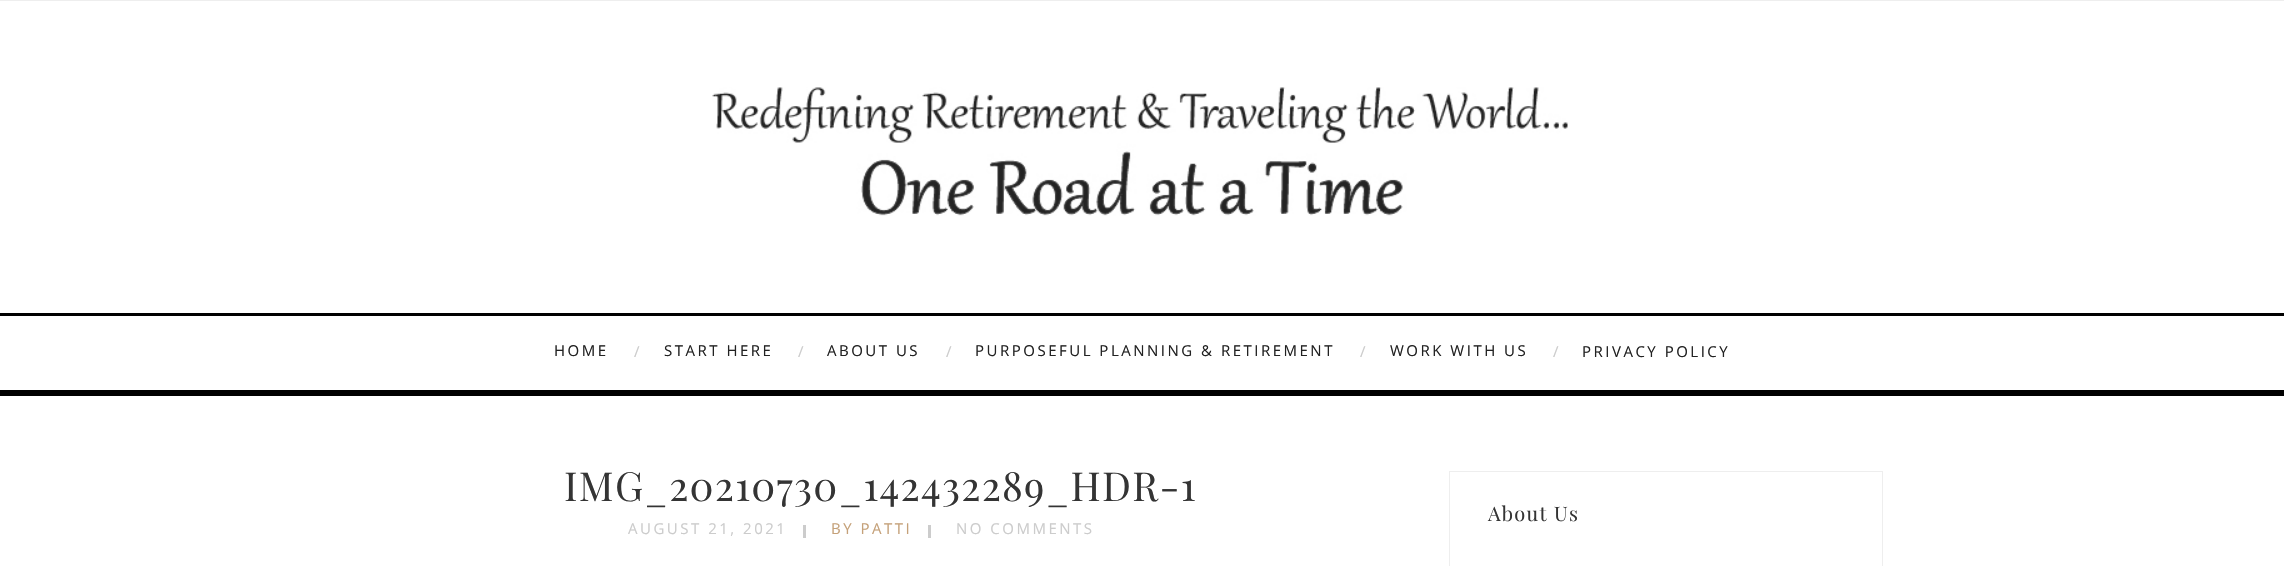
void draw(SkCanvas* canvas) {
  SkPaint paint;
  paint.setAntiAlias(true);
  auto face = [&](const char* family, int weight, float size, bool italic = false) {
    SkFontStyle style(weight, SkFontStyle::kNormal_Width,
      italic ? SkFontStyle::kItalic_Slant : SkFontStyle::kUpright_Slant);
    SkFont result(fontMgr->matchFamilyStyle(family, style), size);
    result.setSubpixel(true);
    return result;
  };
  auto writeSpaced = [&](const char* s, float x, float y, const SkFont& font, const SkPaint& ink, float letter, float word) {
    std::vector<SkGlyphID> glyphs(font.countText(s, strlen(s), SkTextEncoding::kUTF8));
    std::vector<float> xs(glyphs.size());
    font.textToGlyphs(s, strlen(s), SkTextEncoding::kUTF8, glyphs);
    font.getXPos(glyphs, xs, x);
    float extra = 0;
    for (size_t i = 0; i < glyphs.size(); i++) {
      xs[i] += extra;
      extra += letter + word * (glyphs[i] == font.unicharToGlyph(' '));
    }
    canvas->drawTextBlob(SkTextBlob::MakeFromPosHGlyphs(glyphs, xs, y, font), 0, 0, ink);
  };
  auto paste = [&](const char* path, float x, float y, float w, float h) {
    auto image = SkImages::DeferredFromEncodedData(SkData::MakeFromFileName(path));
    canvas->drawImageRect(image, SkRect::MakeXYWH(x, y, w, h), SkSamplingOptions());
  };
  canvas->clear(0xffffffff);
  paint.setColor(0xffeeeeee);
  canvas->drawRect(SkRect::MakeXYWH(0, 0, 2284, 1), paint);
  paste("img/1.png", 712, 87, 856, 129);
  {
    const struct { float x, y, w, h; SkColor color; } items[] = {
      {0, 313, 2284, 3, 0xff000000},
      {0, 390, 2284, 6, 0xff000000},
      {803, 525, 3, 13, 0xffcccccc},
      {928, 525, 3, 13, 0xffcccccc},
    };
    for (auto [x, y, w, h, color] : items) {
      paint.setColor(color);
      canvas->drawRect(SkRect::MakeXYWH(x, y, w, h), paint);
    }
  }
  paint.setStroke(true);
  paint.setStrokeWidth(1);
  paint.setColor(0xffeeeeee);
  canvas->drawRect(SkRect::MakeXYWH(1449.5f, 471.5f, 433, 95), paint);
  auto f0 = face("Open Sans", 400, 15);
  paint.setStroke(false);
  paint.setColor(0xff222222);
  writeSpaced("HOME", 554, 356, f0, paint, 2.5f, 0);
  paint.setColor(0xffcccccc);
  writeSpaced("/", 634, 357, f0, paint, 2.5f, 0);
  paint.setColor(0xff222222);
  writeSpaced("START HERE", 664, 356, f0, paint, 2.5f, 0);
  paint.setColor(0xffcccccc);
  writeSpaced("/", 798, 357, f0, paint, 2.5f, 0);
  paint.setColor(0xff222222);
  writeSpaced("ABOUT US", 827, 356, f0, paint, 2.5f, 0);
  paint.setColor(0xffcccccc);
  writeSpaced("/", 946, 357, f0, paint, 2.5f, 0);
  paint.setColor(0xff222222);
  writeSpaced("PURPOSEFUL PLANNING & RETIREMENT", 975, 356, f0, paint, 2.5f, 0);
  paint.setColor(0xffcccccc);
  writeSpaced("/", 1360, 357, f0, paint, 2.5f, 0);
  paint.setColor(0xff222222);
  writeSpaced("WORK WITH US", 1390, 356, f0, paint, 2.5f, 0);
  paint.setColor(0xffcccccc);
  writeSpaced("/", 1553, 357, f0, paint, 2.5f, 0);
  paint.setColor(0xff222222);
  writeSpaced("PRIVACY POLICY", 1582, 357, f0, paint, 2.5f, 0);
  auto f1 = face("Playfair Display", 400, 40);
  paint.setColor(0xff343434);
  writeSpaced("IMG_20210730_142432289_HDR-1", 564, 501, f1, paint, 1.25f, 0);
  paint.setColor(0xffcccccc);
  writeSpaced("AUGUST 21, 2021", 628, 534, f0, paint, 2.5f, 0);
  paint.setColor(0xffc5a179);
  writeSpaced("BY PATTI", 831, 534, f0, paint, 2.5f, 0);
  paint.setColor(0xffcccccc);
  writeSpaced("NO COMMENTS", 956, 534, f0, paint, 2.5f, 0);
  auto f2 = face("Playfair Display", 400, 20);
  paint.setColor(0xff343434);
  writeSpaced("About Us", 1488, 521, f2, paint, 1.25f, 0);
}
